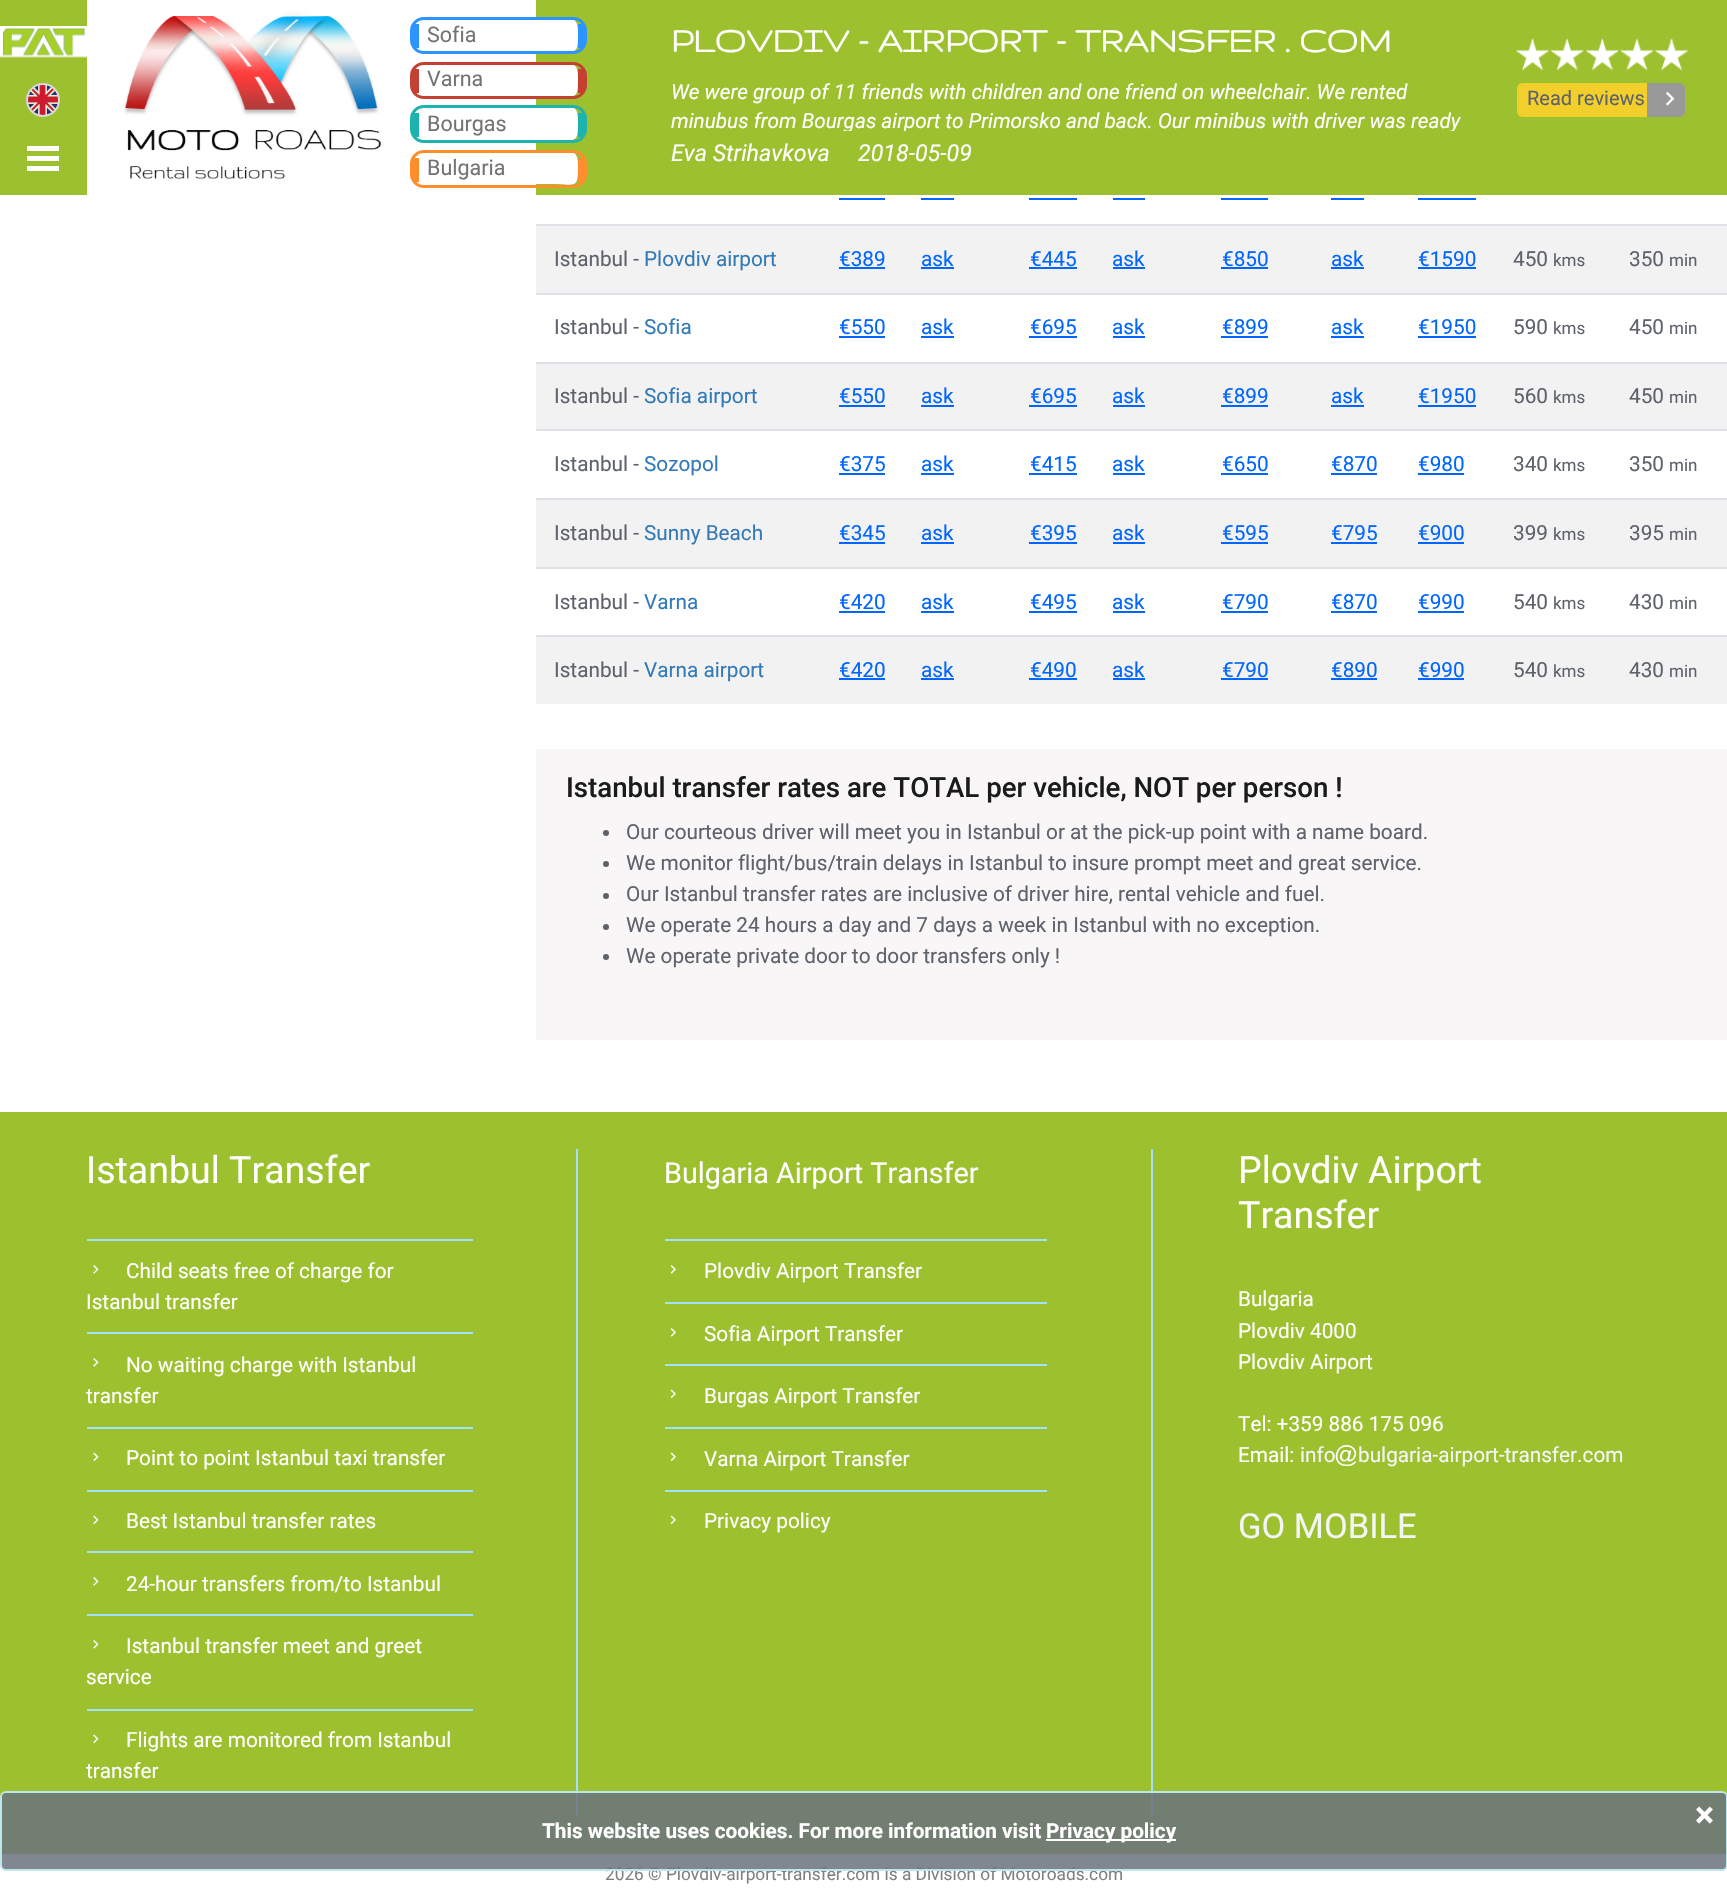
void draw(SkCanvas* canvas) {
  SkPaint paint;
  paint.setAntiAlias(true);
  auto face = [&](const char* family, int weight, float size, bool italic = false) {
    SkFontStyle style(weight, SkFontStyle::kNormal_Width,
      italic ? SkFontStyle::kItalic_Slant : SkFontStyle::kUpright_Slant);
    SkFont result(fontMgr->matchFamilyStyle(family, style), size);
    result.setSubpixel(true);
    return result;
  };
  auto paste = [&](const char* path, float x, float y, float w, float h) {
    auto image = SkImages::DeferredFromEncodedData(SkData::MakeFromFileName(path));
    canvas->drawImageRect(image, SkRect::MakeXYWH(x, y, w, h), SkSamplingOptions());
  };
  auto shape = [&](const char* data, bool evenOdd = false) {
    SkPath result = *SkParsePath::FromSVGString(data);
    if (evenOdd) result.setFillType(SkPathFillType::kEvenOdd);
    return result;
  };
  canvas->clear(0xffffffff);
  paint.setColor(0xff9dc02e);
  canvas->drawRect(SkRect::MakeXYWH(0, 0, 87, 195), paint);
  paste("img/1.png", 0, 26, 87, 32);
  paste("img/2.png", 26, 83, 33, 32);
  paint.setStroke(true);
  paint.setStrokeWidth(2);
  paint.setColor(0xffdbd9d9);
  canvas->drawCircle(43, 100, 16, paint);
  paint.setStroke(false);
  {
    const struct { float x, y, w, h; SkColor color; } items[] = {
      {27, 146, 32, 5, 0xffffffff},
      {27, 156, 32, 5, 0xffffffff},
      {27, 166, 32, 5, 0xffffffff},
    };
    for (auto [x, y, w, h, color] : items) {
      paint.setColor(color);
      canvas->drawRect(SkRect::MakeXYWH(x, y, w, h), paint);
    }
  }
  paste("img/3.png", 124, 11, 258, 168);
  paint.setColor(0xff9dc02e);
  canvas->drawRect(SkRect::MakeXYWH(536, 0, 1191, 195), paint);
  paint.setColor(0xffffffff);
  canvas->drawPath(shape("M423 20H574C578 22 578 30 578 34C578 57 576 51 548 51H423L421 50C417 46 417 20 423 20Z"), paint);
  paint.setStroke(true);
  paint.setStrokeWidth(3);
  paint.setColor(0xff2b94ff);
  canvas->drawRoundRect(SkRect::MakeXYWH(411.5f, 18.5f, 174, 34), 12.5f, 12.5f, paint);
  paint.setStroke(false);
  canvas->drawRect(SkRect::MakeXYWH(578, 24, 6, 24), paint);
  canvas->drawRect(SkRect::MakeXYWH(413, 24, 6, 24), paint);
  paint.setColor(0xffffffff);
  canvas->drawPath(shape("M423 64L574 65C578 67 578 75 578 78C578 102 576 96 548 96H423L421 95C417 91 417 64 423 64Z"), paint);
  paint.setStroke(true);
  paint.setColor(0xffc44131);
  canvas->drawRoundRect(SkRect::MakeXYWH(411.5f, 63.5f, 174, 34), 12.5f, 12.5f, paint);
  paint.setStroke(false);
  canvas->drawRect(SkRect::MakeXYWH(578, 69, 6, 24), paint);
  canvas->drawRect(SkRect::MakeXYWH(413, 69, 6, 24), paint);
  paint.setColor(0xffffffff);
  canvas->drawPath(shape("M423 108H574C578 110 578 118 578 122C578 145 576 140 548 140H423L421 139C417 135 417 108 423 108Z"), paint);
  paint.setStroke(true);
  paint.setColor(0xff1db4ad);
  canvas->drawRoundRect(SkRect::MakeXYWH(411.5f, 106.5f, 174, 35), 12.5f, 12.5f, paint);
  paint.setStroke(false);
  canvas->drawRect(SkRect::MakeXYWH(578, 113, 6, 24), paint);
  canvas->drawRect(SkRect::MakeXYWH(413, 113, 6, 24), paint);
  paint.setColor(0xffffffff);
  canvas->drawPath(shape("M423 153H574C578 155 578 163 578 167C578 190 576 184 548 184H423H421C417 180 417 153 423 153Z"), paint);
  paint.setStroke(true);
  paint.setColor(0xfffd8e2b);
  canvas->drawRoundRect(SkRect::MakeXYWH(411.5f, 151.5f, 174, 35), 12.5f, 12.5f, paint);
  paint.setStroke(false);
  canvas->drawRect(SkRect::MakeXYWH(578, 158, 6, 24), paint);
  canvas->drawRect(SkRect::MakeXYWH(413, 158, 6, 24), paint);
  paste("img/4.png", 1516, 38, 172, 33);
  paint.setColor(0xfff2cf2b);
  canvas->drawPath(shape("M1523 83H1649V117H1523C1519.5 117 1517 114.5 1517 111V89C1517 85.5 1519.5 83 1523 83Z"), paint);
  paint.setColor(0xff999999);
  canvas->drawPath(shape("M1647 83H1679C1682.5 83 1685 85.5 1685 89V111C1685 114.5 1682.5 117 1679 117H1647Z"), paint);
  paste("img/5.png", 1666, 91, 9, 15);
  {
    const struct { float x, y, w, h; SkColor color; } items[] = {
      {839, 198, 46, 2, 0xff0066ff},
      {921, 198, 33, 2, 0xff0066ff},
      {1029, 198, 48, 2, 0xff0066ff},
      {1113, 198, 32, 2, 0xff0066ff},
      {1221, 198, 47, 2, 0xff0066ff},
      {1331, 198, 33, 2, 0xff0066ff},
      {1418, 198, 58, 2, 0xff0066ff},
      {536, 226, 1191, 67, 0xfff2f2f2},
      {839, 267, 46, 2, 0xff0066ff},
      {921, 267, 33, 2, 0xff0066ff},
      {1029, 267, 48, 2, 0xff0066ff},
      {1113, 267, 32, 2, 0xff0066ff},
      {1221, 267, 47, 2, 0xff0066ff},
      {1331, 267, 33, 2, 0xff0066ff},
      {1418, 267, 58, 2, 0xff0066ff},
      {536, 224, 1191, 2, 0xffdee2e6},
      {839, 336, 46, 2, 0xff0066ff},
      {921, 336, 33, 2, 0xff0066ff},
      {1029, 336, 48, 2, 0xff0066ff},
      {1113, 336, 32, 2, 0xff0066ff},
      {1221, 336, 47, 2, 0xff0066ff},
      {1331, 336, 33, 2, 0xff0066ff},
      {1418, 336, 58, 2, 0xff0066ff},
      {536, 293, 1191, 2, 0xffdee2e6},
      {536, 364, 1191, 65, 0xfff2f2f2},
      {839, 405, 46, 2, 0xff0066ff},
      {921, 405, 33, 2, 0xff0066ff},
      {1029, 405, 48, 2, 0xff0066ff},
      {1113, 405, 32, 2, 0xff0066ff},
      {1221, 405, 47, 2, 0xff0066ff},
      {1331, 405, 33, 2, 0xff0066ff},
      {1418, 405, 58, 2, 0xff0066ff},
      {536, 362, 1191, 2, 0xffdee2e6},
      {839, 473, 46, 2, 0xff0066ff},
      {921, 473, 33, 2, 0xff0066ff},
      {1029, 473, 48, 2, 0xff0066ff},
      {1113, 473, 32, 2, 0xff0066ff},
      {1221, 473, 47, 2, 0xff0066ff},
      {1331, 473, 46, 2, 0xff0066ff},
      {1418, 473, 46, 2, 0xff0066ff},
      {536, 429, 1191, 2, 0xffdee2e6},
      {536, 500, 1191, 67, 0xfff2f2f2},
      {839, 542, 46, 2, 0xff0066ff},
      {921, 542, 33, 2, 0xff0066ff},
      {1029, 542, 48, 2, 0xff0066ff},
      {1113, 542, 32, 2, 0xff0066ff},
      {1221, 542, 47, 2, 0xff0066ff},
      {1331, 542, 46, 2, 0xff0066ff},
      {1418, 542, 46, 2, 0xff0066ff},
      {536, 498, 1191, 2, 0xffdee2e6},
      {839, 611, 46, 2, 0xff0066ff},
      {921, 611, 33, 2, 0xff0066ff},
      {1029, 611, 48, 2, 0xff0066ff},
      {1113, 611, 32, 2, 0xff0066ff},
      {1221, 611, 47, 2, 0xff0066ff},
      {1331, 611, 46, 2, 0xff0066ff},
      {1418, 611, 46, 2, 0xff0066ff},
      {536, 567, 1191, 2, 0xffdee2e6},
      {536, 637, 1191, 67, 0xfff2f2f2},
      {839, 678, 46, 2, 0xff0066ff},
      {921, 678, 33, 2, 0xff0066ff},
      {1029, 678, 48, 2, 0xff0066ff},
      {1113, 678, 32, 2, 0xff0066ff},
      {1221, 678, 47, 2, 0xff0066ff},
      {1331, 678, 46, 2, 0xff0066ff},
      {1418, 678, 46, 2, 0xff0066ff},
      {536, 635, 1191, 2, 0xffdee2e6},
      {536, 749, 1191, 291, 0xfff8f6f7},
    };
    for (auto [x, y, w, h, color] : items) {
      paint.setColor(color);
      canvas->drawRect(SkRect::MakeXYWH(x, y, w, h), paint);
    }
  }
  paint.setColor(0xff5e626b);
  canvas->drawCircle(606, 833, 3, paint);
  canvas->drawCircle(606, 864, 3, paint);
  canvas->drawCircle(606, 896, 3, paint);
  canvas->drawCircle(606, 927, 3, paint);
  canvas->drawCircle(606, 957, 3, paint);
  paint.setColor(0xff9dc02e);
  canvas->drawRect(SkRect::MakeXYWH(0, 1112, 1727, 742), paint);
  paint.setColor(0xffa3e2ff);
  canvas->drawRect(SkRect::MakeXYWH(87, 1239, 386, 2), paint);
  paste("img/6.png", 93, 1265, 6, 9);
  canvas->drawRect(SkRect::MakeXYWH(87, 1332, 386, 2), paint);
  paste("img/6.png", 93, 1358, 6, 9);
  canvas->drawRect(SkRect::MakeXYWH(87, 1427, 386, 2), paint);
  paste("img/7.png", 93, 1452, 6, 10);
  canvas->drawRect(SkRect::MakeXYWH(87, 1490, 386, 2), paint);
  paste("img/7.png", 93, 1515, 6, 10);
  canvas->drawRect(SkRect::MakeXYWH(87, 1551, 386, 2), paint);
  paste("img/6.png", 93, 1577, 6, 9);
  canvas->drawRect(SkRect::MakeXYWH(87, 1614, 386, 2), paint);
  paste("img/6.png", 93, 1640, 6, 9);
  canvas->drawRect(SkRect::MakeXYWH(87, 1709, 386, 2), paint);
  paste("img/7.png", 93, 1734, 6, 10);
  {
    const struct { float x, y, w, h; SkColor color; } items[] = {
      {1151, 1149, 2, 668, 0xffa3e2ff},
      {576, 1149, 2, 668, 0xffa3e2ff},
      {665, 1239, 382, 2, 0xffa3e2ff},
    };
    for (auto [x, y, w, h, color] : items) {
      paint.setColor(color);
      canvas->drawRect(SkRect::MakeXYWH(x, y, w, h), paint);
    }
  }
  paste("img/8.png", 670, 1265, 6, 9);
  canvas->drawRect(SkRect::MakeXYWH(665, 1302, 382, 2), paint);
  paste("img/8.png", 670, 1328, 6, 9);
  canvas->drawRect(SkRect::MakeXYWH(665, 1364, 382, 2), paint);
  paste("img/9.png", 670, 1389, 6, 10);
  canvas->drawRect(SkRect::MakeXYWH(665, 1427, 382, 2), paint);
  paste("img/9.png", 670, 1452, 6, 10);
  canvas->drawRect(SkRect::MakeXYWH(665, 1490, 382, 2), paint);
  paste("img/9.png", 670, 1515, 6, 10);
  paste("img/10.png", 1335, 1445, 22, 21);
  auto f0 = face("Roboto", 400, 21.5f);
  paint.setColor(0xff737373);
  {
    const struct { const char* s; float x, y; } items[] = {
      {"Sofia", 427, 42},
      {"Varna", 427, 86},
      {"Bourgas", 427, 131},
      {"Bulgaria", 427, 175},
    };
    for (auto [s, x, y] : items) {
      canvas->drawString(s, x, y, f0, paint);
    }
  }
  auto f1 = face("Gruppo", 700, 38);
  paint.setColor(0xffffffff);
  canvas->drawString("PLOVDIV - AIRPORT - TRANSFER . COM", 671, 52, f1, paint);
  auto f2 = face("Roboto", 400, 20.75f, true);
  canvas->drawString("We were group of 11 friends with children and one friend on wheelchair. We rented", 671, 99, f2, paint);
  canvas->save();
  canvas->clipRect(SkRect::MakeXYWH(671, 78, 798, 53));
  canvas->drawString("minubus from Bourgas airport to Primorsko and back. Our minibus with driver was ready", 671, 128, f2, paint);
  canvas->restore();
  auto f3 = face("Roboto", 400, 23.25f, true);
  canvas->drawString("Eva Strihavkova", 671, 161, f3, paint);
  canvas->drawString("2018-05-09", 858, 161, f3, paint);
  auto f4 = face("Roboto", 400, 20);
  paint.setColor(0xff5e626b);
  canvas->drawString("Read reviews", 1527, 105, f4, paint);
  auto f5 = face("Roboto", 400, 20.75f);
  canvas->drawString("Istanbul -", 554, 266, f5, paint);
  paint.setColor(0xff337ab7);
  canvas->drawString("Plovdiv airport", 644, 266, f5, paint);
  paint.setColor(0xff0066ff);
  {
    const struct { const char* s; float x, y; } items[] = {
      {"€389", 839, 266},
      {"ask", 921, 266},
      {"€445", 1030, 266},
      {"ask", 1112, 266},
      {"€850", 1222, 266},
      {"ask", 1331, 266},
      {"€1590", 1418, 266},
    };
    for (auto [s, x, y] : items) {
      canvas->drawString(s, x, y, f5, paint);
    }
  }
  paint.setColor(0xff5e626b);
  canvas->drawString("450", 1513, 266, f5, paint);
  auto f6 = face("Roboto", 400, 17);
  canvas->drawString("kms", 1553, 266, f6, paint);
  canvas->drawString("350", 1629, 266, f5, paint);
  canvas->drawString("min", 1669, 266, f6, paint);
  canvas->drawString("Istanbul -", 554, 334, f5, paint);
  paint.setColor(0xff337ab7);
  canvas->drawString("Sofia", 644, 334, f5, paint);
  paint.setColor(0xff0066ff);
  {
    const struct { const char* s; float x, y; } items[] = {
      {"€550", 839, 334},
      {"ask", 921, 334},
      {"€695", 1030, 334},
      {"ask", 1112, 334},
      {"€899", 1222, 334},
      {"ask", 1331, 334},
      {"€1950", 1418, 334},
    };
    for (auto [s, x, y] : items) {
      canvas->drawString(s, x, y, f5, paint);
    }
  }
  paint.setColor(0xff5e626b);
  canvas->drawString("590", 1513, 334, f5, paint);
  canvas->drawString("kms", 1553, 334, f6, paint);
  canvas->drawString("450", 1629, 334, f5, paint);
  canvas->drawString("min", 1669, 334, f6, paint);
  canvas->drawString("Istanbul -", 554, 403, f5, paint);
  paint.setColor(0xff337ab7);
  canvas->drawString("Sofia airport", 644, 403, f5, paint);
  paint.setColor(0xff0066ff);
  {
    const struct { const char* s; float x, y; } items[] = {
      {"€550", 839, 403},
      {"ask", 921, 403},
      {"€695", 1030, 403},
      {"ask", 1112, 403},
      {"€899", 1222, 403},
      {"ask", 1331, 403},
      {"€1950", 1418, 403},
    };
    for (auto [s, x, y] : items) {
      canvas->drawString(s, x, y, f5, paint);
    }
  }
  paint.setColor(0xff5e626b);
  canvas->drawString("560", 1513, 403, f5, paint);
  canvas->drawString("kms", 1553, 403, f6, paint);
  canvas->drawString("450", 1629, 403, f5, paint);
  canvas->drawString("min", 1669, 403, f6, paint);
  canvas->drawString("Istanbul -", 554, 471, f5, paint);
  paint.setColor(0xff337ab7);
  canvas->drawString("Sozopol", 644, 471, f5, paint);
  paint.setColor(0xff0066ff);
  {
    const struct { const char* s; float x, y; } items[] = {
      {"€375", 839, 471},
      {"ask", 921, 471},
      {"€415", 1030, 471},
      {"ask", 1112, 471},
      {"€650", 1222, 471},
      {"€870", 1331, 471},
      {"€980", 1418, 471},
    };
    for (auto [s, x, y] : items) {
      canvas->drawString(s, x, y, f5, paint);
    }
  }
  paint.setColor(0xff5e626b);
  canvas->drawString("340", 1513, 471, f5, paint);
  canvas->drawString("kms", 1553, 471, f6, paint);
  canvas->drawString("350", 1629, 471, f5, paint);
  canvas->drawString("min", 1669, 471, f6, paint);
  canvas->drawString("Istanbul -", 554, 540, f5, paint);
  paint.setColor(0xff337ab7);
  canvas->drawString("Sunny Beach", 644, 540, f5, paint);
  paint.setColor(0xff0066ff);
  {
    const struct { const char* s; float x, y; } items[] = {
      {"€345", 839, 540},
      {"ask", 921, 540},
      {"€395", 1030, 540},
      {"ask", 1112, 540},
      {"€595", 1222, 540},
      {"€795", 1331, 540},
      {"€900", 1418, 540},
    };
    for (auto [s, x, y] : items) {
      canvas->drawString(s, x, y, f5, paint);
    }
  }
  paint.setColor(0xff5e626b);
  canvas->drawString("399", 1513, 540, f5, paint);
  canvas->drawString("kms", 1553, 540, f6, paint);
  canvas->drawString("395", 1629, 540, f5, paint);
  canvas->drawString("min", 1669, 540, f6, paint);
  canvas->drawString("Istanbul -", 554, 609, f5, paint);
  paint.setColor(0xff337ab7);
  canvas->drawString("Varna", 644, 609, f5, paint);
  paint.setColor(0xff0066ff);
  {
    const struct { const char* s; float x, y; } items[] = {
      {"€420", 839, 609},
      {"ask", 921, 609},
      {"€495", 1030, 609},
      {"ask", 1112, 609},
      {"€790", 1222, 609},
      {"€870", 1331, 609},
      {"€990", 1418, 609},
    };
    for (auto [s, x, y] : items) {
      canvas->drawString(s, x, y, f5, paint);
    }
  }
  paint.setColor(0xff5e626b);
  canvas->drawString("540", 1513, 609, f5, paint);
  canvas->drawString("kms", 1553, 609, f6, paint);
  canvas->drawString("430", 1629, 609, f5, paint);
  canvas->drawString("min", 1669, 609, f6, paint);
  canvas->drawString("Istanbul -", 554, 677, f5, paint);
  paint.setColor(0xff337ab7);
  canvas->drawString("Varna airport", 644, 677, f5, paint);
  paint.setColor(0xff0066ff);
  {
    const struct { const char* s; float x, y; } items[] = {
      {"€420", 839, 677},
      {"ask", 921, 677},
      {"€490", 1030, 677},
      {"ask", 1112, 677},
      {"€790", 1222, 677},
      {"€890", 1331, 677},
      {"€990", 1418, 677},
    };
    for (auto [s, x, y] : items) {
      canvas->drawString(s, x, y, f5, paint);
    }
  }
  paint.setColor(0xff5e626b);
  canvas->drawString("540", 1513, 677, f5, paint);
  canvas->drawString("kms", 1553, 677, f6, paint);
  canvas->drawString("430", 1629, 677, f5, paint);
  canvas->drawString("min", 1669, 677, f6, paint);
  auto f7 = face("Roboto", 500, 27.65f);
  paint.setColor(0xff1b1b1b);
  canvas->drawString("Istanbul transfer rates are TOTAL per vehicle, NOT per person !", 566, 797, f7, paint);
  paint.setColor(0xff5e626b);
  {
    const struct { const char* s; float x, y; } items[] = {
      {"Our courteous driver will meet you in Istanbul or at the pick-up point with a name board.", 626, 839},
      {"We monitor flight/bus/train delays in Istanbul to insure prompt meet and great service.", 626, 870},
      {"Our Istanbul transfer rates are inclusive of driver hire, rental vehicle and fuel.", 626, 901},
      {"We operate 24 hours a day and 7 days a week in Istanbul with no exception.", 626, 932},
      {"We operate private door to door transfers only !", 626, 963},
    };
    for (auto [s, x, y] : items) {
      canvas->drawString(s, x, y, f5, paint);
    }
  }
  auto f8 = face("Roboto", 400, 37.5f);
  paint.setColor(0xffffffff);
  canvas->drawString("Istanbul Transfer", 86, 1183, f8, paint);
  {
    const struct { const char* s; float x, y; } items[] = {
      {"Child seats free of charge for", 126, 1278},
      {"Istanbul transfer", 86, 1309},
      {"No waiting charge with Istanbul", 126, 1372},
      {"transfer", 86, 1403},
      {"Point to point Istanbul taxi transfer", 126, 1465},
      {"Best Istanbul transfer rates", 126, 1528},
      {"24-hour transfers from/to Istanbul", 126, 1591},
      {"Istanbul transfer meet and greet", 126, 1653},
      {"service", 86, 1684},
      {"Flights are monitored from Istanbul", 126, 1747},
      {"transfer", 86, 1778},
    };
    for (auto [s, x, y] : items) {
      canvas->drawString(s, x, y, f5, paint);
    }
  }
  auto f9 = face("Roboto", 400, 28.75f);
  canvas->drawString("Bulgaria Airport Transfer", 664, 1183, f9, paint);
  {
    const struct { const char* s; float x, y; } items[] = {
      {"Plovdiv Airport Transfer", 704, 1278},
      {"Sofia Airport Transfer", 704, 1341},
      {"Burgas Airport Transfer", 704, 1403},
      {"Varna Airport Transfer", 704, 1466},
      {"Privacy policy", 704, 1528},
    };
    for (auto [s, x, y] : items) {
      canvas->drawString(s, x, y, f5, paint);
    }
  }
  canvas->drawString("Plovdiv Airport", 1238, 1183, f8, paint);
  canvas->drawString("Transfer", 1238, 1228, f8, paint);
  {
    const struct { const char* s; float x, y; } items[] = {
      {"Bulgaria", 1238, 1306},
      {"Plovdiv 4000", 1238, 1338},
      {"Plovdiv Airport", 1238, 1369},
      {"Tel: +359 886 175 096", 1238, 1431},
      {"Еmail:", 1238, 1462},
    };
    for (auto [s, x, y] : items) {
      canvas->drawString(s, x, y, f5, paint);
    }
  }
  paint.setColor(0xfff4f5f6);
  canvas->drawString("info", 1300, 1462, f5, paint);
  canvas->drawString("bulgaria-airport-transfer.com", 1358, 1462, f5, paint);
  auto f10 = face("Roboto", 400, 34.5f);
  canvas->drawString("GO MOBILE", 1238, 1538, f10, paint);
  auto f11 = face("Roboto", 400, 17.25f);
  paint.setColor(0xff808080);
  canvas->drawString("2026 © Plovdiv-airport-transfer.com is a Division of Motoroads.com", 605, 1880, f11, paint);
  paint.setColor(0xd96b727e);
  canvas->drawRoundRect(SkRect::MakeXYWH(1, 1792, 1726, 78), 5, 5, paint);
  paint.setStroke(true);
  paint.setStrokeWidth(2);
  paint.setColor(0xffbee5eb);
  canvas->drawRoundRect(SkRect::MakeXYWH(1, 1792, 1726, 78), 5, 5, paint);
  auto f12 = face("Roboto", 700, 36);
  paint.setStroke(false);
  paint.setColor(0xffffffff);
  canvas->drawString("×", 1695, 1827, f12, paint);
  canvas->drawRect(SkRect::MakeXYWH(1046, 1839, 130, 2), paint);
  auto f13 = face("Roboto", 700, 20.75f);
  canvas->drawString("Privacy policy", 1046, 1838, f13, paint);
  canvas->drawString("This website uses cookies. For more information visit", 542, 1838, f13, paint);
}
